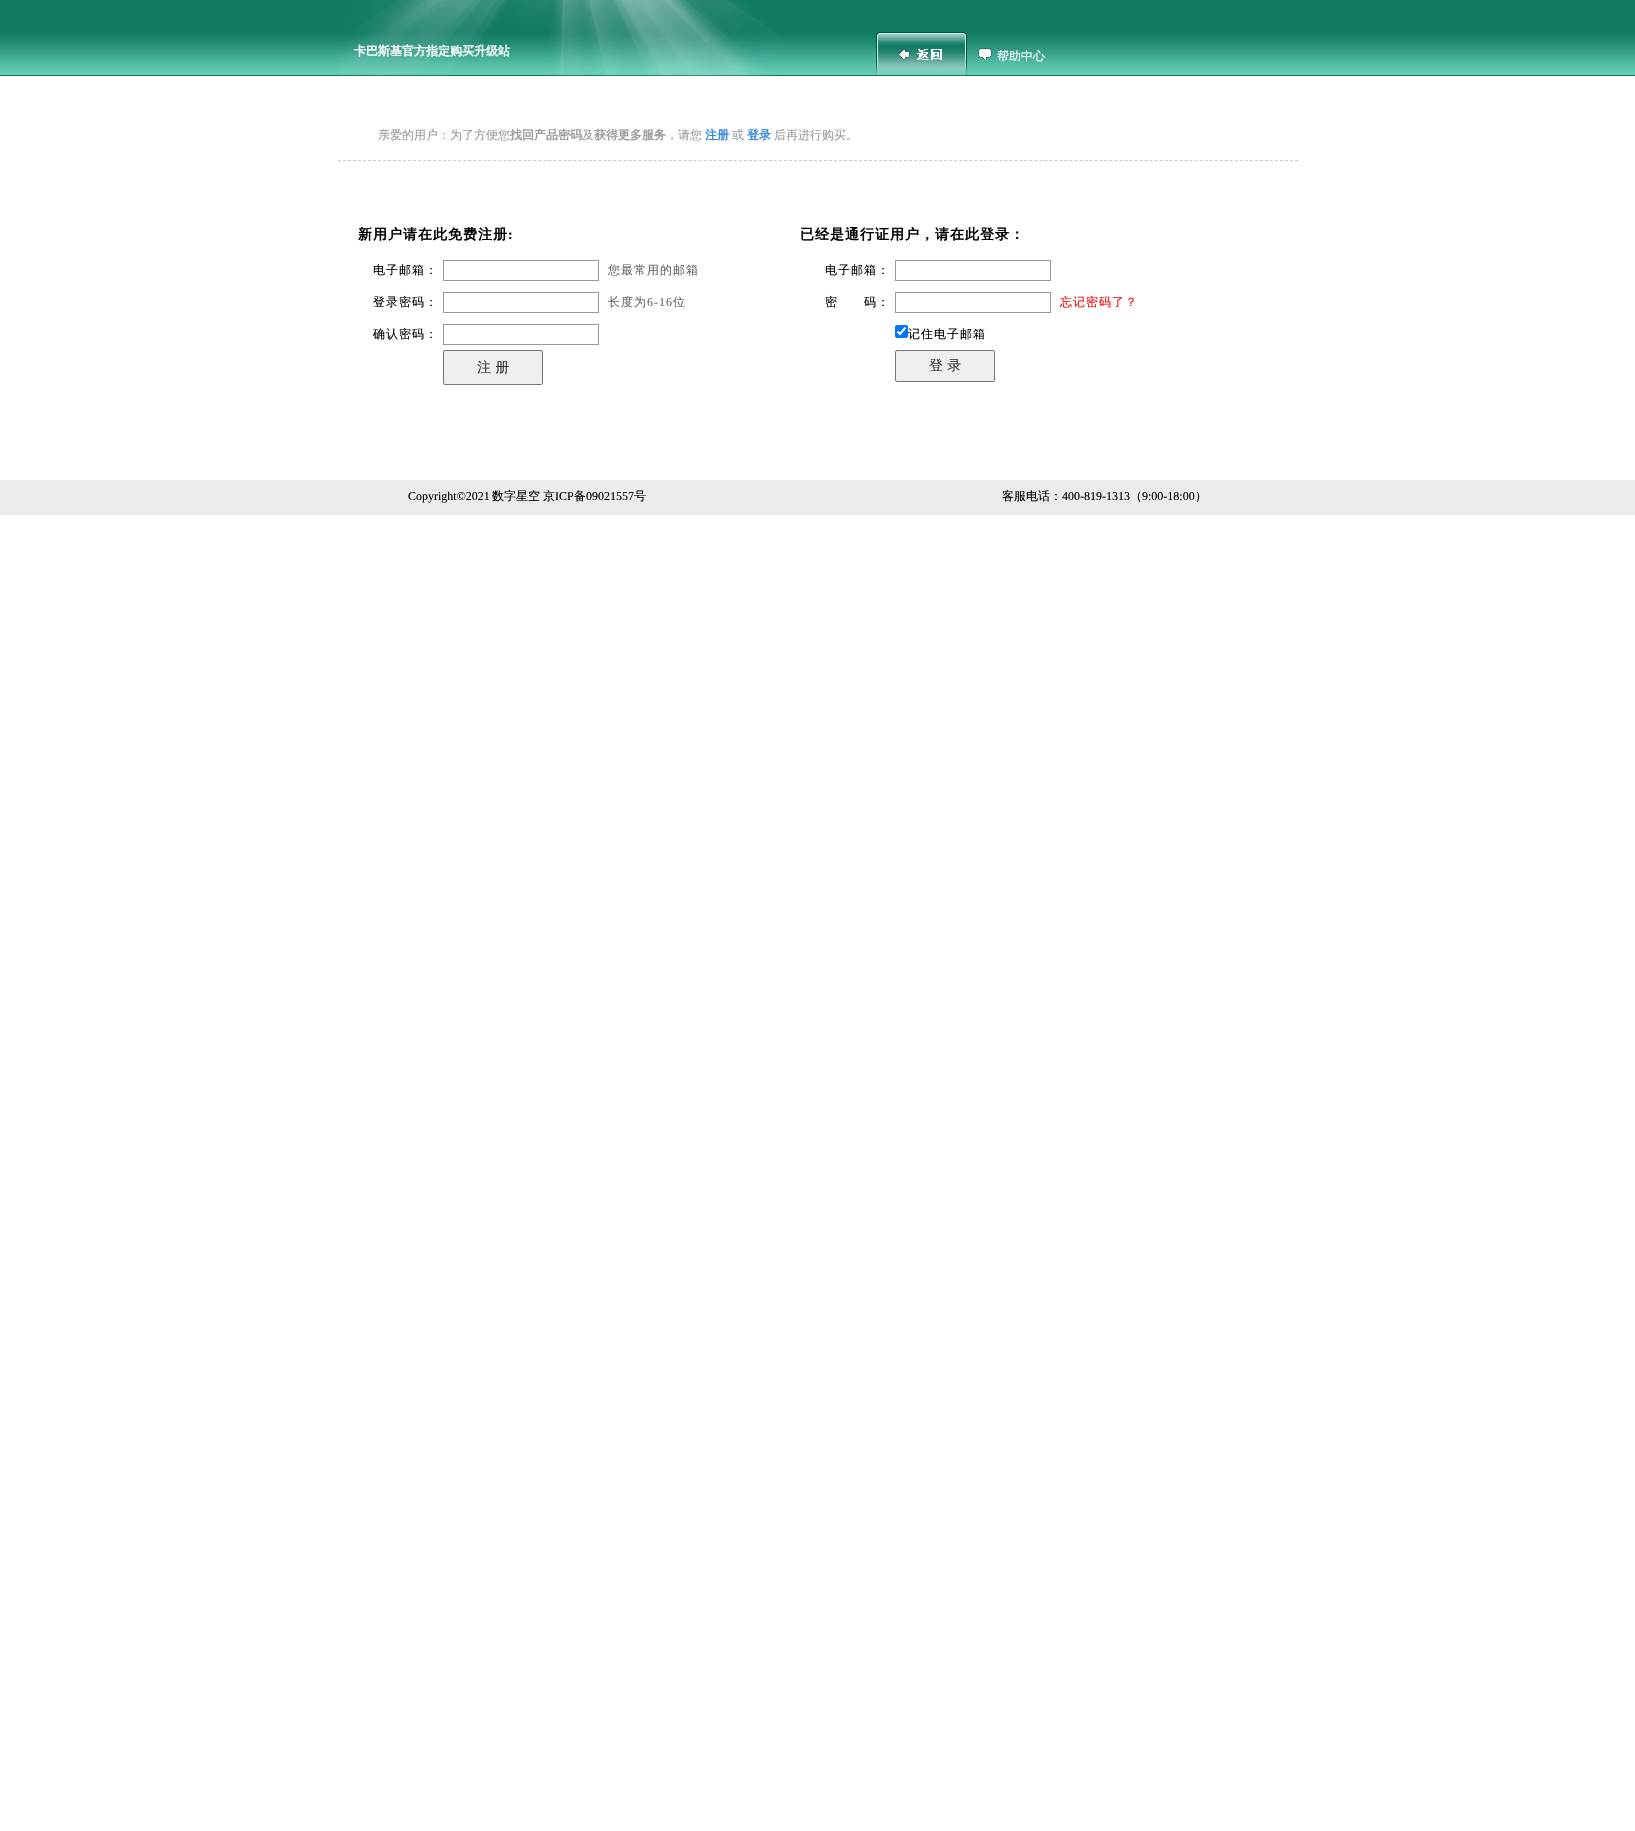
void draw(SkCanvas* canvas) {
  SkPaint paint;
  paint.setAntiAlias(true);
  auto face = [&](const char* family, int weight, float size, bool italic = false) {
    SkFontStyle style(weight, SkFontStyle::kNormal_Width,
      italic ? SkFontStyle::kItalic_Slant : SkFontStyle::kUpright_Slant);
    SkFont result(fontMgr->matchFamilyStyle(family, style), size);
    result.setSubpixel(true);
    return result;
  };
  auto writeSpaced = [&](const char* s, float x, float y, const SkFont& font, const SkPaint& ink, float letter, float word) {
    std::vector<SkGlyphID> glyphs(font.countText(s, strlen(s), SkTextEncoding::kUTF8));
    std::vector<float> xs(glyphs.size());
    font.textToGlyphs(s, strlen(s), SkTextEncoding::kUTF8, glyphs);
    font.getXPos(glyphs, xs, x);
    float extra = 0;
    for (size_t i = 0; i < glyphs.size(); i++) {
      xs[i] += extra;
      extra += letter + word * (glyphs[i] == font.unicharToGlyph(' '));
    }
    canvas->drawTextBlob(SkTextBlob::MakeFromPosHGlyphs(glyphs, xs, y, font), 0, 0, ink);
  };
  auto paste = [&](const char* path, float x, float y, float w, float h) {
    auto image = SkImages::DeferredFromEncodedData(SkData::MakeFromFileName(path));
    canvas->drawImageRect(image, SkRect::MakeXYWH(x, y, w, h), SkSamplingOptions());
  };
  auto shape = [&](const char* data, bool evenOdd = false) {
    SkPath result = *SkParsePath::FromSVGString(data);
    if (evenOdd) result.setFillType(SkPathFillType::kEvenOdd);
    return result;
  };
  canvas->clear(0xffffffff);
  paste("img/1.png", 0, 0, 1635, 76);
  paste("img/2.png", 338, 0, 446, 76);
  paste("img/3.png", 876, 32, 91, 43);
  paste("img/4.png", 978, 48, 14, 13);
  paint.setStroke(true);
  paint.setStrokeWidth(1);
  paint.setColor(0xffcccccc);
  paint.setPathEffect(SkDashPathEffect::Make({{3, 2.01f}}, 0));
  canvas->drawPath(shape("M338 160.5H1298"), paint);
  paint.setPathEffect(nullptr);
  paint.setColor(0xff999999);
  canvas->drawRect(SkRect::MakeXYWH(443.5f, 260.5f, 155, 20), paint);
  canvas->drawRect(SkRect::MakeXYWH(443.5f, 292.5f, 155, 20), paint);
  canvas->drawRect(SkRect::MakeXYWH(443.5f, 324.5f, 155, 20), paint);
  paint.setStroke(false);
  paint.setColor(0xffefefef);
  canvas->drawRoundRect(SkRect::MakeXYWH(443.5f, 350.5f, 99, 34), 1.5f, 1.5f, paint);
  paint.setStroke(true);
  paint.setColor(0xff767676);
  canvas->drawRoundRect(SkRect::MakeXYWH(443.5f, 350.5f, 99, 34), 1.5f, 1.5f, paint);
  paint.setColor(0xff999999);
  canvas->drawRect(SkRect::MakeXYWH(895.5f, 260.5f, 155, 20), paint);
  canvas->drawRect(SkRect::MakeXYWH(895.5f, 292.5f, 155, 20), paint);
  paint.setStroke(false);
  paint.setColor(0xff0075ff);
  canvas->drawRoundRect(SkRect::MakeXYWH(895, 325, 13, 13), 2, 2, paint);
  paint.setStroke(true);
  paint.setStrokeWidth(2.1f);
  paint.setColor(0xffffffff);
  canvas->drawPath(shape("M897.5 331.5L900 334L905.5 327.5"), paint);
  paint.setStroke(false);
  paint.setColor(0xffefefef);
  canvas->drawRoundRect(SkRect::MakeXYWH(895.5f, 350.5f, 99, 31), 1.5f, 1.5f, paint);
  paint.setStroke(true);
  paint.setStrokeWidth(1);
  paint.setColor(0xff767676);
  canvas->drawRoundRect(SkRect::MakeXYWH(895.5f, 350.5f, 99, 31), 1.5f, 1.5f, paint);
  paint.setStroke(false);
  paint.setColor(0xffebebeb);
  canvas->drawRect(SkRect::MakeXYWH(0, 480, 1635, 35), paint);
  auto f0 = face("WenQuanYi Zen Hei", 700, 12);
  paint.setColor(0xffffffff);
  canvas->drawString("卡巴斯基官方指定购买升级站", 354, 55, f0, paint);
  auto f1 = face("WenQuanYi Zen Hei", 500, 12);
  canvas->drawString("帮助中心", 997, 60, f1, paint);
  paint.setColor(0xff999999);
  canvas->drawString("亲爱的用户：为了方便您", 378, 139, f1, paint);
  canvas->drawString("找回产品密码", 510, 139, f0, paint);
  canvas->drawString("及", 582, 139, f1, paint);
  canvas->drawString("获得更多服务", 594, 139, f0, paint);
  canvas->drawString("，请您", 666, 139, f1, paint);
  paint.setColor(0xff3088e1);
  canvas->drawString("注册", 705, 139, f0, paint);
  paint.setColor(0xff999999);
  canvas->drawString("或", 732, 139, f1, paint);
  paint.setColor(0xff3088e1);
  canvas->drawString("登录", 747, 139, f0, paint);
  paint.setColor(0xff999999);
  canvas->drawString("后再进行购买。", 774, 139, f1, paint);
  auto f2 = face("WenQuanYi Zen Hei", 700, 14);
  paint.setColor(0xff000000);
  writeSpaced("新用户请在此免费注册", 358, 239, f2, paint, 1, 0);
  auto f3 = face("Liberation Serif", 700, 14);
  writeSpaced(":", 508, 239, f3, paint, 1, 0);
  writeSpaced("电子邮箱：", 373, 274, f1, paint, 1, 0);
  paint.setColor(0xff666666);
  writeSpaced("您最常用的邮箱", 608, 274, f1, paint, 1, 0);
  paint.setColor(0xff000000);
  writeSpaced("登录密码：", 373, 306, f1, paint, 1, 0);
  paint.setColor(0xff666666);
  writeSpaced("长度为", 608, 306, f1, paint, 1, 0);
  auto f4 = face("Liberation Serif", 400, 12);
  writeSpaced("6-16", 647, 306, f4, paint, 1, 0);
  writeSpaced("位", 673, 306, f1, paint, 1, 0);
  paint.setColor(0xff000000);
  writeSpaced("确认密码：", 373, 338, f1, paint, 1, 0);
  auto f5 = face("WenQuanYi Zen Hei", 500, 14);
  paint.setColor(0xff333333);
  canvas->drawString("注 册", 477, 372, f5, paint);
  paint.setColor(0xff000000);
  writeSpaced("已经是通行证用户，请在此登录：", 800, 239, f2, paint, 1, 0);
  writeSpaced("电子邮箱：", 825, 274, f1, paint, 1, 0);
  writeSpaced("密　　码：", 825, 306, f1, paint, 1, 0);
  paint.setColor(0xffff0000);
  writeSpaced("忘记密码了？", 1060, 306, f1, paint, 1, 0);
  paint.setColor(0xff000000);
  writeSpaced("记住电子邮箱", 908, 338, f1, paint, 1, 0);
  paint.setColor(0xff333333);
  canvas->drawString("登 录", 929, 370, f5, paint);
  paint.setColor(0xff000000);
  canvas->drawString("Copyright©2021", 408, 500, f4, paint);
  canvas->drawString("数字星空", 492, 500, f1, paint);
  canvas->drawString("京", 543, 500, f1, paint);
  canvas->drawString("ICP", 555, 500, f4, paint);
  canvas->drawString("备", 574, 500, f1, paint);
  canvas->drawString("09021557", 586, 500, f4, paint);
  canvas->drawString("号", 634, 500, f1, paint);
  canvas->drawString("客服电话：", 1002, 500, f1, paint);
  canvas->drawString("400-819-1313", 1062, 500, f4, paint);
  canvas->drawString("（", 1130, 500, f1, paint);
  canvas->drawString("9:00-18:00", 1142, 500, f4, paint);
  canvas->drawString("）", 1195, 500, f1, paint);
}
